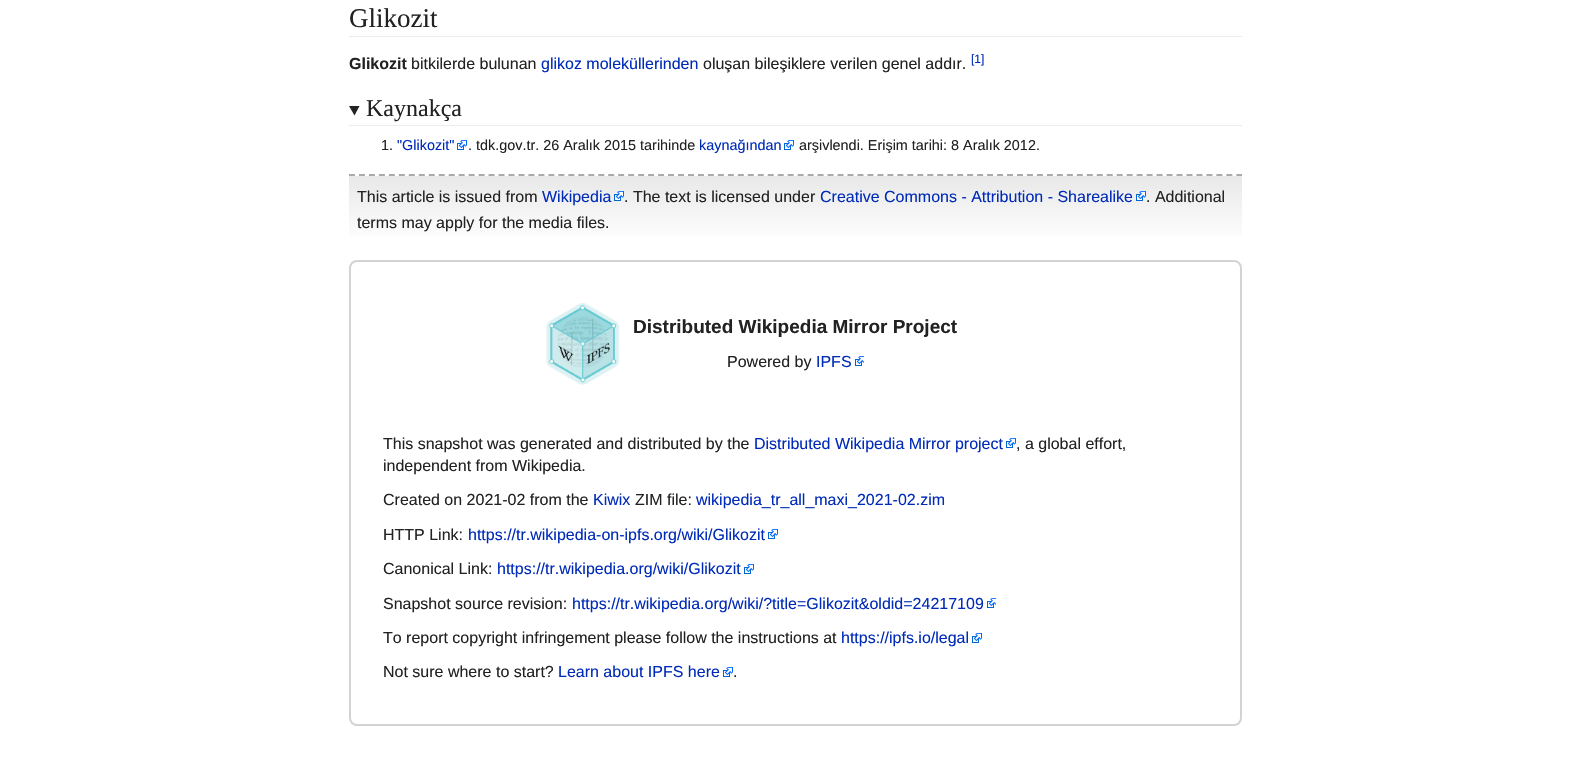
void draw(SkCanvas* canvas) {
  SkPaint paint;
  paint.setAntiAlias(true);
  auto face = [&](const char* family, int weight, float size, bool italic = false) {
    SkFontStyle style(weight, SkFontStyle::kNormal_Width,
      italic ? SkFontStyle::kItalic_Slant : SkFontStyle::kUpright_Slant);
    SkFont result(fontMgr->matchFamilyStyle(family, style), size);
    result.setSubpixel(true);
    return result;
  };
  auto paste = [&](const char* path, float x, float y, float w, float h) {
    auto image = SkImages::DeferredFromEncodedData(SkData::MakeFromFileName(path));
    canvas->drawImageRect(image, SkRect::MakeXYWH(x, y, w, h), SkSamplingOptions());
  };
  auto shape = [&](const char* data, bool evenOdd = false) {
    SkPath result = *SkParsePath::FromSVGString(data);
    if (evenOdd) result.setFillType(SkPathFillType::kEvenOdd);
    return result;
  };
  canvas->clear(0xffffffff);
  paint.setColor(0xffeaecf0);
  canvas->drawRect(SkRect::MakeXYWH(349, 36, 893, 1), paint);
  canvas->drawRect(SkRect::MakeXYWH(349, 125, 893, 1), paint);
  paint.setColor(0xff222222);
  canvas->drawPath(shape("M349 106H359.5L354.5 115.5Z"), paint);
  paste("img/1.png", 457, 140, 10, 10);
  paste("img/1.png", 784, 140, 10, 10);
  {
    const SkColor colors[] = {0xffe8e8e8, 0xffffffff};
    const float stops[] = {0, 1};
    const SkPoint ends[] = {{796, 176}, {796, 244}};
    paint.setShader(SkGradientShader::MakeLinear(ends, colors, stops, 2, SkTileMode::kClamp));
    paint.setAlpha(255);
  }
  canvas->drawRect(SkRect::MakeXYWH(349, 176, 893, 61), paint);
  paint.setStroke(true);
  paint.setStrokeWidth(2);
  paint.setShader(nullptr);
  paint.setColor(0xffaaaaaa);
  paint.setPathEffect(SkDashPathEffect::Make({{6, 3.97f}}, 0));
  canvas->drawPath(shape("M349 175H1242"), paint);
  paint.setPathEffect(nullptr);
  paste("img/2.png", 614, 191, 10, 10);
  paste("img/2.png", 1136, 191, 10, 10);
  paint.setColor(0xffd3d3d3);
  canvas->drawRoundRect(SkRect::MakeXYWH(350, 261, 891, 464), 7, 7, paint);
  paste("img/3.png", 546, 303, 74, 82);
  paste("img/4.png", 855, 356, 9, 10);
  paste("img/1.png", 1006, 438, 10, 10);
  paste("img/1.png", 768, 529, 10, 10);
  paste("img/1.png", 744, 564, 10, 10);
  paste("img/4.png", 987, 598, 9, 10);
  paste("img/1.png", 972, 633, 10, 10);
  paste("img/1.png", 723, 667, 10, 10);
  auto f0 = face("Liberation Serif", 400, 27);
  paint.setStroke(false);
  paint.setColor(0xff222222);
  canvas->drawString("Glikozit", 349, 27, f0, paint);
  auto f1 = face("Liberation Sans", 700, 16);
  canvas->drawString("Glikozit", 349, 69, f1, paint);
  auto f2 = face("Liberation Sans", 400, 16);
  canvas->drawString("bitkilerde bulunan", 411, 69, f2, paint);
  paint.setColor(0xff002bb8);
  canvas->drawString("glikoz moleküllerinden", 541, 69, f2, paint);
  paint.setColor(0xff222222);
  canvas->drawString("oluşan bileşiklere verilen genel addır.", 703, 69, f2, paint);
  auto f3 = face("Liberation Sans", 400, 12);
  paint.setColor(0xff002bb8);
  canvas->drawString("[1]", 971, 63, f3, paint);
  auto f4 = face("Liberation Serif", 400, 24);
  paint.setColor(0xff222222);
  canvas->drawString("Kaynakça", 366, 116, f4, paint);
  auto f5 = face("Liberation Sans", 400, 14.4f);
  canvas->drawString("1.", 381, 150, f5, paint);
  paint.setColor(0xff002bb8);
  canvas->drawString("\"Glikozit\"", 397, 150, f5, paint);
  paint.setColor(0xff222222);
  canvas->drawString(". tdk.gov.tr. 26 Aralık 2015 tarihinde", 468, 150, f5, paint);
  paint.setColor(0xff002bb8);
  canvas->drawString("kaynağından", 699, 150, f5, paint);
  paint.setColor(0xff222222);
  canvas->drawString("arşivlendi. Erişim tarihi: 8 Aralık 2012.", 799, 150, f5, paint);
  canvas->drawString("This article is issued from", 357, 202, f2, paint);
  paint.setColor(0xff002bb8);
  canvas->drawString("Wikipedia", 542, 202, f2, paint);
  paint.setColor(0xff222222);
  canvas->drawString(". The text is licensed under", 624, 202, f2, paint);
  paint.setColor(0xff002bb8);
  canvas->drawString("Creative Commons - Attribution - Sharealike", 820, 202, f2, paint);
  paint.setColor(0xff222222);
  canvas->drawString(". Additional", 1146, 202, f2, paint);
  canvas->drawString("terms may apply for the media files.", 357, 228, f2, paint);
  auto f6 = face("Liberation Sans", 700, 19);
  canvas->drawString("Distributed Wikipedia Mirror Project", 633, 333, f6, paint);
  canvas->drawString("Powered by", 727, 367, f2, paint);
  paint.setColor(0xff002bb8);
  canvas->drawString("IPFS", 816, 367, f2, paint);
  paint.setColor(0xff222222);
  canvas->drawString("This snapshot was generated and distributed by the", 383, 449, f2, paint);
  paint.setColor(0xff002bb8);
  canvas->drawString("Distributed Wikipedia Mirror project", 754, 449, f2, paint);
  paint.setColor(0xff222222);
  {
    const struct { const char* s; float x, y; } items[] = {
      {", a global effort,", 1016, 449},
      {"independent from Wikipedia.", 383, 471},
      {"Created on 2021-02 from the", 383, 505},
    };
    for (auto [s, x, y] : items) {
      canvas->drawString(s, x, y, f2, paint);
    }
  }
  paint.setColor(0xff002bb8);
  canvas->drawString("Kiwix", 593, 505, f2, paint);
  paint.setColor(0xff222222);
  canvas->drawString("ZIM file:", 635, 505, f2, paint);
  paint.setColor(0xff002bb8);
  canvas->drawString("wikipedia_tr_all_maxi_2021-02.zim", 696, 505, f2, paint);
  paint.setColor(0xff222222);
  canvas->drawString("HTTP Link:", 383, 540, f2, paint);
  paint.setColor(0xff002bb8);
  canvas->drawString("https://tr.wikipedia-on-ipfs.org/wiki/Glikozit", 468, 540, f2, paint);
  paint.setColor(0xff222222);
  canvas->drawString("Canonical Link:", 383, 574, f2, paint);
  paint.setColor(0xff002bb8);
  canvas->drawString("https://tr.wikipedia.org/wiki/Glikozit", 497, 574, f2, paint);
  paint.setColor(0xff222222);
  canvas->drawString("Snapshot source revision:", 383, 609, f2, paint);
  paint.setColor(0xff002bb8);
  canvas->drawString("https://tr.wikipedia.org/wiki/?title=Glikozit&oldid=24217109", 572, 609, f2, paint);
  paint.setColor(0xff222222);
  canvas->drawString("To report copyright infringement please follow the instructions at", 383, 643, f2, paint);
  paint.setColor(0xff002bb8);
  canvas->drawString("https://ipfs.io/legal", 841, 643, f2, paint);
  paint.setColor(0xff222222);
  canvas->drawString("Not sure where to start?", 383, 677, f2, paint);
  paint.setColor(0xff002bb8);
  canvas->drawString("Learn about IPFS here", 558, 677, f2, paint);
  paint.setColor(0xff222222);
  canvas->drawString(".", 733, 677, f2, paint);
}
